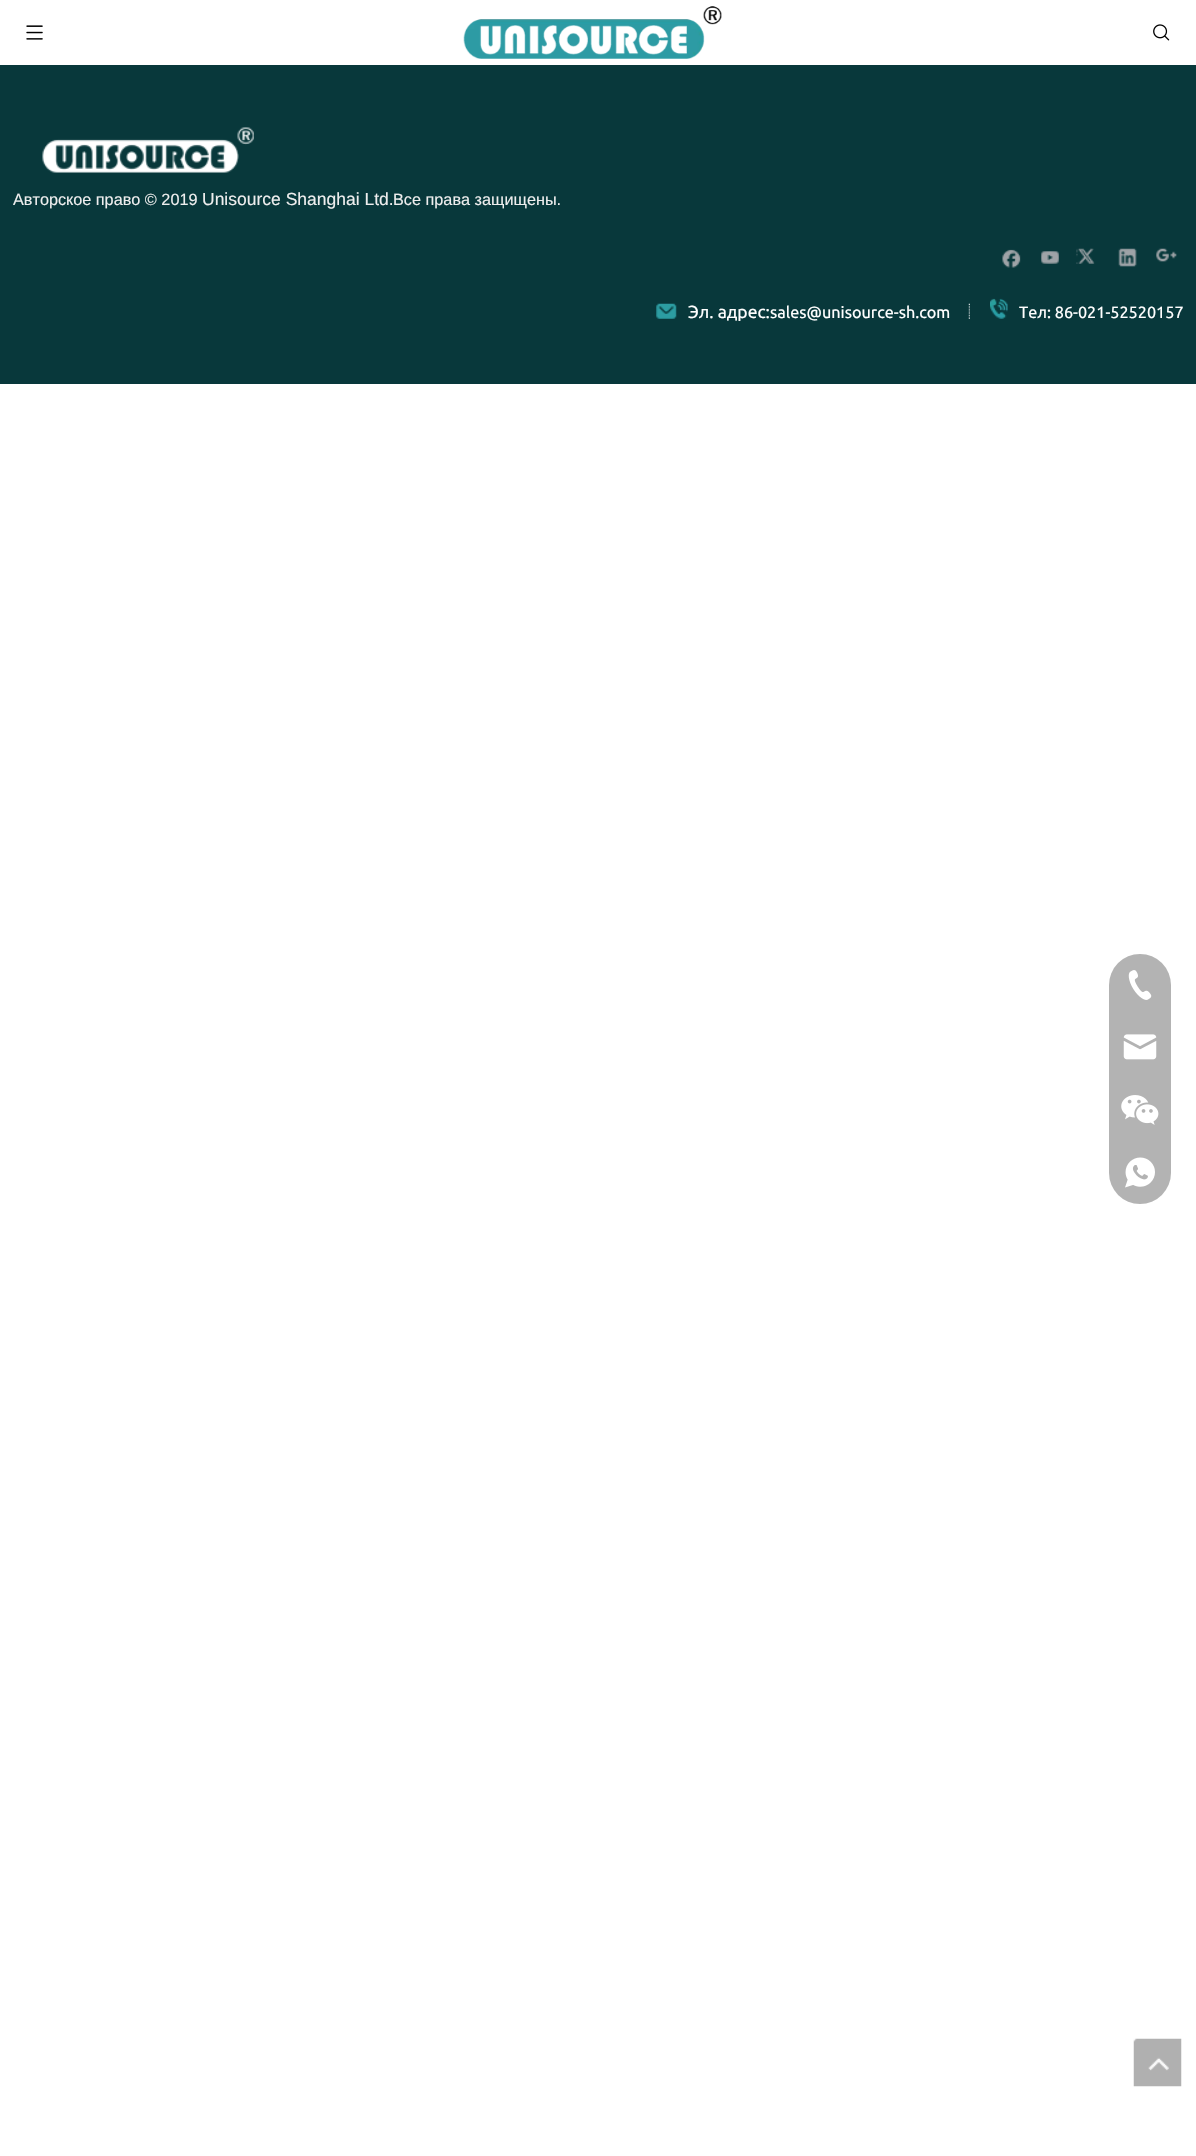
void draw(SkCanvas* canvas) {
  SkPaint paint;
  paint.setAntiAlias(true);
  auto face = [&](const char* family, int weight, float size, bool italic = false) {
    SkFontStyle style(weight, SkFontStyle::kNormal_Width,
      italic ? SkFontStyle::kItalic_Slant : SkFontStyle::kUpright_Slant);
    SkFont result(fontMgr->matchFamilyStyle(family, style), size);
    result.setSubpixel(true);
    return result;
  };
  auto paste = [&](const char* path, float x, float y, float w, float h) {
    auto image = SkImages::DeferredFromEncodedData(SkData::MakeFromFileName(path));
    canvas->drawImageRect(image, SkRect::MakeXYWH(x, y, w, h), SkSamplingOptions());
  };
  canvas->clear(0xffffffff);
  paste("img/1.png", 26, 25, 17, 15);
  paste("img/2.png", 463, 6, 259, 53);
  paste("img/3.png", 1153, 24, 17, 17);
  paint.setColor(0xff08383b);
  canvas->drawRect(SkRect::MakeXYWH(0, 65, 1196, 319), paint);
  paste("img/4.png", 42, 127, 212, 46);
  paint.setColor(0xffb3b3b3);
  canvas->drawRoundRect(SkRect::MakeXYWH(1109, 954, 62, 250), 31, 31, paint);
  paste("img/5.png", 1128, 970, 24, 30);
  paste("img/6.png", 1123, 1034, 34, 26);
  paste("img/7.png", 1121, 1095, 38, 30);
  paste("img/8.png", 1125, 1157, 30, 31);
  paste("img/9.png", 1002, 249, 19, 19);
  paste("img/10.png", 1041, 251, 18, 13);
  paste("img/11.png", 1076, 248, 19, 16);
  paste("img/12.png", 1118, 248, 19, 19);
  paste("img/13.png", 1156, 248, 21, 14);
  paste("img/14.png", 656, 303, 21, 16);
  paste("img/15.png", 968, 303, 2, 16);
  paste("img/16.png", 990, 298, 18, 21);
  paste("img/17.png", 1133, 2038, 49, 49);
  auto f0 = face("Liberation Sans", 400, 16.25f);
  paint.setColor(0xffeeeeee);
  canvas->drawString("Авторское право © 2019", 13, 205, f0, paint);
  auto f1 = face("Liberation Sans", 400, 17.5f);
  canvas->drawString("Unisource Shanghai Ltd.", 202, 205, f1, paint);
  canvas->drawString("Все права защищены.", 393, 205, f0, paint);
  canvas->save();
  canvas->clipRect(SkRect::MakeXYWH(13, 299, 1171, 22));
  auto f2 = face("Ubuntu", 400, 17.5f);
  paint.setColor(0xffffffff);
  canvas->drawString("Эл. адрес:", 688, 318, f2, paint);
  canvas->restore();
  auto f3 = face("Ubuntu", 400, 16.25f);
  canvas->drawString("sales@unisource-sh.com", 770, 318, f3, paint);
  canvas->drawString("Тел: 86-021-52520157", 1019, 318, f3, paint);
}
